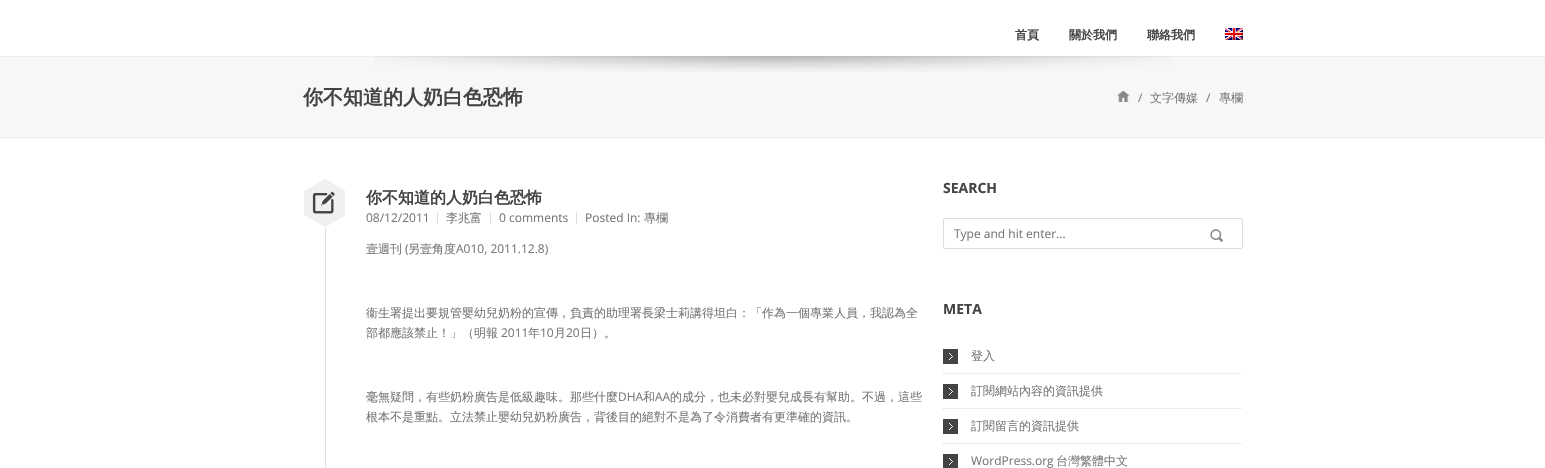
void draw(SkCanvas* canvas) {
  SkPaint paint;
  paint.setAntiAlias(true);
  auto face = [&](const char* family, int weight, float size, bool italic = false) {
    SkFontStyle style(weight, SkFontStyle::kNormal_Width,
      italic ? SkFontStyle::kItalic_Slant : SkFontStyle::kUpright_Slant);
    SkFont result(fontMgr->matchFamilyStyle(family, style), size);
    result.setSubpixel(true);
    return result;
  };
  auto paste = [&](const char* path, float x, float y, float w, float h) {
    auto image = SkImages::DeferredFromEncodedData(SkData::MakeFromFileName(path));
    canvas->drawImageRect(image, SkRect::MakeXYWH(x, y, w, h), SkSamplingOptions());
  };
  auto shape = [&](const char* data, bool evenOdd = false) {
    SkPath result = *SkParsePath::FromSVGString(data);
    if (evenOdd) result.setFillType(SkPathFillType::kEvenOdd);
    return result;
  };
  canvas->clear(0xffffffff);
  paste("img/1.png", 1225, 28, 18, 12);
  paint.setColor(0xfff7f7f7);
  canvas->drawRect(SkRect::MakeXYWH(0, 57, 1545, 80), paint);
  paint.setColor(0xffeeeeee);
  canvas->drawRect(SkRect::MakeXYWH(0, 56, 1545, 1), paint);
  paste("img/2.png", 374, 56, 797, 16);
  canvas->drawRect(SkRect::MakeXYWH(0, 137, 1545, 1), paint);
  paste("img/3.png", 1117, 91, 13, 11);
  paint.setColor(0xffdddddd);
  canvas->drawRect(SkRect::MakeXYWH(325, 228, 1, 240), paint);
  paint.setColor(0xfff0f0f0);
  canvas->drawRect(SkRect::MakeXYWH(304, 178, 41, 50), paint);
  paste("img/4.png", 304, 178, 41, 50);
  paste("img/5.png", 312, 191, 23, 23);
  {
    const struct { float x, y, w, h; SkColor color; } items[] = {
      {437, 212, 1, 12, 0xffdddddd},
      {490, 212, 1, 12, 0xffdddddd},
      {576, 212, 1, 12, 0xffdddddd},
    };
    for (auto [x, y, w, h, color] : items) {
      paint.setColor(color);
      canvas->drawRect(SkRect::MakeXYWH(x, y, w, h), paint);
    }
  }
  paint.setStroke(true);
  paint.setStrokeWidth(1);
  canvas->drawRoundRect(SkRect::MakeXYWH(943.5f, 218.5f, 299, 30), 1.5f, 1.5f, paint);
  paste("img/6.png", 1210, 229, 13, 13);
  paint.setPathEffect(SkDashPathEffect::Make({{1, 1}}, 0));
  canvas->drawPath(shape("M943 373.5H1243"), paint);
  paint.setPathEffect(nullptr);
  paint.setStroke(false);
  paint.setColor(0xff444444);
  canvas->drawRect(SkRect::MakeXYWH(943, 349, 15, 15), paint);
  paste("img/7.png", 949, 353, 4, 7);
  paint.setStroke(true);
  paint.setColor(0xffdddddd);
  paint.setPathEffect(SkDashPathEffect::Make({{1, 1}}, 0));
  canvas->drawPath(shape("M943 408.5H1243"), paint);
  paint.setPathEffect(nullptr);
  paint.setStroke(false);
  paint.setColor(0xff444444);
  canvas->drawRect(SkRect::MakeXYWH(943, 384, 15, 15), paint);
  paste("img/7.png", 949, 388, 4, 7);
  paint.setStroke(true);
  paint.setColor(0xffdddddd);
  paint.setPathEffect(SkDashPathEffect::Make({{1, 1}}, 0));
  canvas->drawPath(shape("M943 443.5H1243"), paint);
  paint.setPathEffect(nullptr);
  paint.setStroke(false);
  paint.setColor(0xff444444);
  canvas->drawRect(SkRect::MakeXYWH(943, 419, 15, 15), paint);
  paste("img/7.png", 949, 423, 4, 7);
  canvas->drawRect(SkRect::MakeXYWH(943, 454, 15, 14), paint);
  paste("img/7.png", 949, 458, 4, 7);
  auto f0 = face("WenQuanYi Zen Hei", 700, 12);
  {
    const struct { const char* s; float x, y; } items[] = {
      {"首頁", 1015, 39},
      {"關於我們", 1069, 39},
      {"聯絡我們", 1147, 39},
    };
    for (auto [s, x, y] : items) {
      canvas->drawString(s, x, y, f0, paint);
    }
  }
  auto f1 = face("WenQuanYi Zen Hei", 700, 20);
  canvas->drawString("你不知道的人奶白色恐怖", 303, 104, f1, paint);
  auto f2 = face("Open Sans", 400, 12);
  paint.setColor(0xff777777);
  canvas->drawString("/", 1138, 102, f2, paint);
  auto f3 = face("WenQuanYi Zen Hei", 500, 12);
  canvas->drawString("文字傳媒", 1150, 102, f3, paint);
  canvas->drawString("/", 1206, 102, f2, paint);
  canvas->drawString("專欄", 1219, 102, f3, paint);
  auto f4 = face("WenQuanYi Zen Hei", 700, 16);
  paint.setColor(0xff444444);
  canvas->drawString("你不知道的人奶白色恐怖", 366, 203, f4, paint);
  paint.setColor(0xff777777);
  canvas->drawString("08/12/2011", 366, 222, f2, paint);
  canvas->drawString("李兆富", 446, 222, f3, paint);
  canvas->drawString("0 comments", 499, 222, f2, paint);
  canvas->drawString("Posted In:", 585, 222, f2, paint);
  canvas->drawString("專欄", 644, 222, f3, paint);
  canvas->drawString("壹週刊", 366, 253, f3, paint);
  canvas->drawString("(", 405, 253, f2, paint);
  canvas->drawString("另壹角度", 408, 253, f3, paint);
  canvas->drawString("A010, 2011.12.8)", 456, 253, f2, paint);
  canvas->drawString("衞生署提出要規管嬰幼兒奶粉的宣傳，負責的助理署長梁士莉講得坦白：「作為一個專業人員，我認為全", 366, 317, f3, paint);
  canvas->drawString("部都應該禁止！」（明報", 366, 337, f3, paint);
  canvas->drawString("2011", 501, 337, f2, paint);
  canvas->drawString("年", 528, 337, f3, paint);
  canvas->drawString("10", 540, 337, f2, paint);
  canvas->drawString("月", 554, 337, f3, paint);
  canvas->drawString("20", 566, 337, f2, paint);
  canvas->drawString("日）。", 580, 337, f3, paint);
  canvas->drawString("毫無疑問，有些奶粉廣告是低級趣味。那些什麼", 366, 401, f3, paint);
  canvas->drawString("DHA", 618, 401, f2, paint);
  canvas->drawString("和", 643, 401, f3, paint);
  canvas->drawString("AA", 655, 401, f2, paint);
  canvas->drawString("的成分，也未必對嬰兒成長有幫助。不過，這些", 670, 401, f3, paint);
  canvas->drawString("根本不是重點。立法禁止嬰幼兒奶粉廣告，背後目的絕對不是為了令消費者有更準確的資訊。", 366, 421, f3, paint);
  auto f5 = face("Open Sans", 700, 14);
  paint.setColor(0xff444444);
  canvas->drawString("SEARCH", 943, 193, f5, paint);
  paint.setColor(0xff777777);
  canvas->drawString("Type and hit enter...", 954, 238, f2, paint);
  paint.setColor(0xff444444);
  canvas->drawString("META", 943, 314, f5, paint);
  paint.setColor(0xff777777);
  {
    const struct { const char* s; float x, y; } items[] = {
      {"登入", 971, 360},
      {"訂閱網站內容的資訊提供", 971, 395},
      {"訂閱留言的資訊提供", 971, 430},
    };
    for (auto [s, x, y] : items) {
      canvas->drawString(s, x, y, f3, paint);
    }
  }
  canvas->drawString("WordPress.org", 971, 465, f2, paint);
  canvas->drawString("台灣繁體中文", 1056, 465, f3, paint);
}
